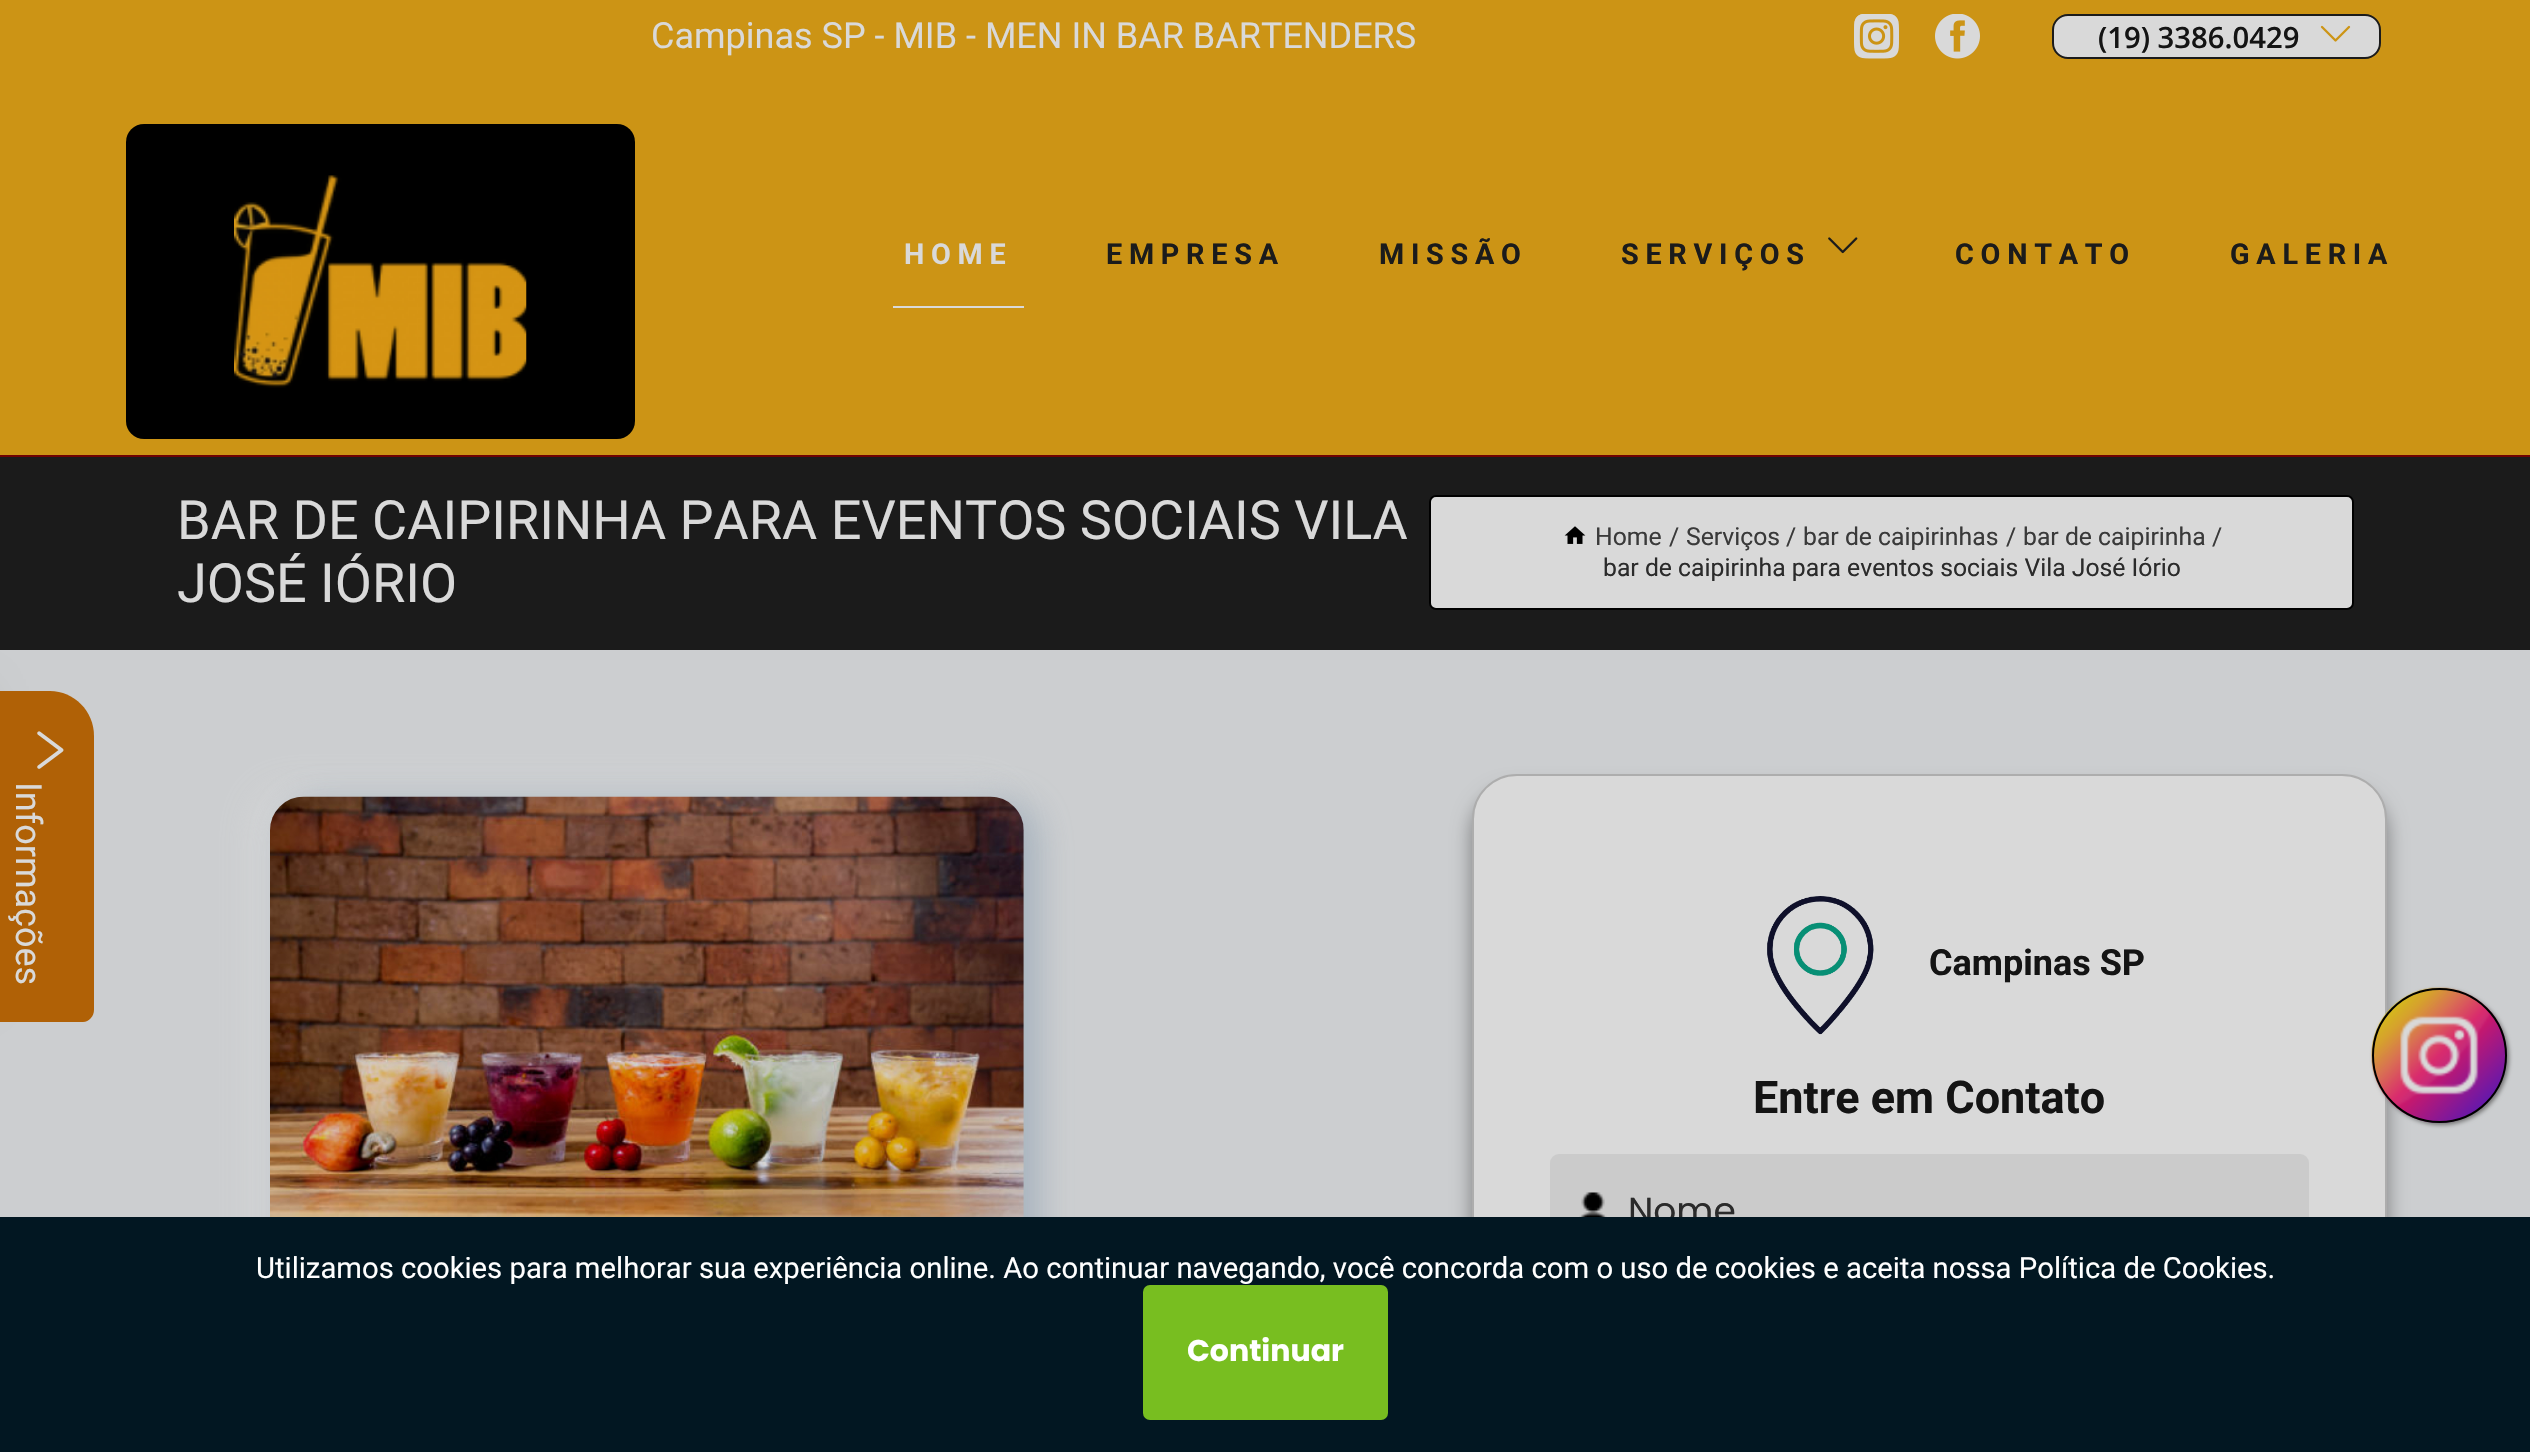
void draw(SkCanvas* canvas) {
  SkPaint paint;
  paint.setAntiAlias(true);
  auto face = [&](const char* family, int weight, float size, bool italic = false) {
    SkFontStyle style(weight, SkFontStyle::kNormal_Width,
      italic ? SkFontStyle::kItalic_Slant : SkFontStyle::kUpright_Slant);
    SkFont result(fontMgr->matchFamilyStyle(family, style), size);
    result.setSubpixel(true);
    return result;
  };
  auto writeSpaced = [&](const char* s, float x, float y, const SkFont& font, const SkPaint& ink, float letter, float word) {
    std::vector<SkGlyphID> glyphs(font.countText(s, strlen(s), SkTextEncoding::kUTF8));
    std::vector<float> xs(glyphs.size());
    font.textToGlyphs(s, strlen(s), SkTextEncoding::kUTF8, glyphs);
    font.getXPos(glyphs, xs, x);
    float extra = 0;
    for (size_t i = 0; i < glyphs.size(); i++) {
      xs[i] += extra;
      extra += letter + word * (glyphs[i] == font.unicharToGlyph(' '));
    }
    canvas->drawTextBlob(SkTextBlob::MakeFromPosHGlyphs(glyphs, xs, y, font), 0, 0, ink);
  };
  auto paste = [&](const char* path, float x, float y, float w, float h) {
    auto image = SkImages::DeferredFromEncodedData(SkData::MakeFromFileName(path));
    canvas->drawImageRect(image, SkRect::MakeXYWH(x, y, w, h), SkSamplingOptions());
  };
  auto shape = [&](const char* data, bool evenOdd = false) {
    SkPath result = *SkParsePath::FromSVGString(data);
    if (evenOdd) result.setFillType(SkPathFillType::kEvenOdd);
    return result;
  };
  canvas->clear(0xffccced0);
  paint.setColor(0xffcc9415);
  canvas->drawRect(SkRect::MakeXYWH(0, 0, 2530, 455), paint);
  paste("img/1.png", 1854, 14, 45, 45);
  paste("img/2.png", 1935, 14, 45, 45);
  paint.setColor(0xffd9d9d9);
  canvas->drawRoundRect(SkRect::MakeXYWH(2053, 15, 327, 43), 15, 15, paint);
  paint.setStroke(true);
  paint.setStrokeWidth(2);
  paint.setColor(0xff1b1b1b);
  canvas->drawRoundRect(SkRect::MakeXYWH(2053, 15, 327, 43), 15, 15, paint);
  paste("img/3.png", 2320, 25, 31, 17);
  paint.setStroke(false);
  paint.setColor(0xff000000);
  canvas->drawRoundRect(SkRect::MakeXYWH(126, 124, 509, 315), 18, 18, paint);
  paste("img/4.png", 234, 175, 293, 213);
  paint.setColor(0xffd9d9d9);
  canvas->drawRect(SkRect::MakeXYWH(893, 306, 131, 2), paint);
  paste("img/5.png", 1828, 237, 30, 17);
  paint.setColor(0xff1b1b1b);
  canvas->drawRect(SkRect::MakeXYWH(0, 457, 2530, 193), paint);
  paint.setColor(0xff717171);
  paint.setMaskFilter(SkMaskFilter::MakeBlur(kNormal_SkBlurStyle, 27));
  canvas->drawRect(SkRect::MakeXYWH(-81, 704, 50, 279), paint);
  paint.setMaskFilter(nullptr);
  paint.setColor(0xffb06106);
  canvas->drawPath(shape("M94 736V1010C94 1016 89 1022 83 1022H-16V691H50C74 691 94 711 94 736Z"), paint);
  paste("img/6.png", 37, 731, 27, 38);
  paint.setColor(0xff700202);
  canvas->drawRect(SkRect::MakeXYWH(0, 455, 2530, 2), paint);
  paint.setColor(0xffd9d9d9);
  canvas->drawRoundRect(SkRect::MakeXYWH(1430, 496, 923, 113), 6, 6, paint);
  paint.setStroke(true);
  paint.setColor(0xff000000);
  canvas->drawRoundRect(SkRect::MakeXYWH(1430, 496, 923, 113), 6, 6, paint);
  paste("img/7.png", 1564, 526, 22, 18);
  paint.setStroke(false);
  paint.setColor(0xccd9d9d9);
  paint.setMaskFilter(SkMaskFilter::MakeBlur(kNormal_SkBlurStyle, 18));
  canvas->drawRoundRect(SkRect::MakeXYWH(257, 792, 753, 502), 34, 34, paint);
  paint.setMaskFilter(nullptr);
  paint.setColor(0x7a748ca2);
  paint.setMaskFilter(SkMaskFilter::MakeBlur(kNormal_SkBlurStyle, 18));
  canvas->drawRoundRect(SkRect::MakeXYWH(284, 801, 753, 502), 34, 34, paint);
  paint.setMaskFilter(nullptr);
  paste("img/8.png", 270, 796, 754, 421);
  paint.setColor(0x66000000);
  paint.setMaskFilter(SkMaskFilter::MakeBlur(kNormal_SkBlurStyle, 10));
  canvas->drawRoundRect(SkRect::MakeXYWH(1472, 790, 915, 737), 45, 45, paint);
  paint.setMaskFilter(nullptr);
  paint.setColor(0xffd9d9d9);
  canvas->drawRoundRect(SkRect::MakeXYWH(1473, 775, 913, 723), 44, 44, paint);
  paint.setStroke(true);
  paint.setColor(0xffadadad);
  canvas->drawRoundRect(SkRect::MakeXYWH(1473, 775, 913, 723), 44, 44, paint);
  paste("img/9.png", 1767, 896, 107, 139);
  paint.setStroke(false);
  paint.setColor(0xffcbcbcb);
  canvas->drawRoundRect(SkRect::MakeXYWH(1550, 1154, 759, 115), 9, 9, paint);
  paste("img/10.png", 1579, 1192, 28, 25);
  paint.setColor(0xff747474);
  paint.setMaskFilter(SkMaskFilter::MakeBlur(kNormal_SkBlurStyle, 2));
  canvas->drawRoundRect(SkRect::MakeXYWH(2374, 990, 135, 135), 67.5f, 67.5f, paint);
  paint.setMaskFilter(nullptr);
  paste("img/11.png", 2371, 987, 136, 136);
  paint.setStroke(true);
  paint.setColor(0xff000000);
  canvas->drawCircle(2439.5f, 1055.5f, 66.5f, paint);
  auto f0 = face("Roboto", 400, 36);
  paint.setStroke(false);
  paint.setColor(0xffd9d9d9);
  canvas->drawString("Campinas SP - MIB - MEN IN BAR BARTENDERS", 651, 48, f0, paint);
  auto f1 = face("Open Sans", 600, 29.25f);
  paint.setColor(0xff141414);
  canvas->drawString("(19) 3386.0429", 2098, 48, f1, paint);
  auto f2 = face("Roboto", 700, 28.75f);
  paint.setColor(0xffd9d9d9);
  writeSpaced("HOME", 904, 264, f2, paint, 6.75f, 0);
  paint.setColor(0xff1b1b1b);
  {
    const struct { const char* s; float x, y; } items[] = {
      {"EMPRESA", 1106, 264},
      {"MISSÃO", 1379, 264},
      {"SERVIÇOS", 1621, 264},
      {"CONTATO", 1955, 264},
      {"GALERIA", 2230, 264},
    };
    for (auto [s, x, y] : items) {
      writeSpaced(s, x, y, f2, paint, 6.75f, 0);
    }
  }
  paint.setColor(0xffd9d9d9);
  canvas->save();
  canvas->rotate(90, 16, 782);
  canvas->drawString("Informações", 16, 782, f0, paint);
  canvas->restore();
  auto f3 = face("Roboto", 400, 54);
  canvas->drawString("BAR DE CAIPIRINHA PARA EVENTOS SOCIAIS VILA", 177, 539, f3, paint);
  canvas->drawString("JOSÉ IÓRIO", 177, 602, f3, paint);
  auto f4 = face("Roboto", 400, 24.75f);
  paint.setColor(0xff3a3a3a);
  {
    const struct { const char* s; float x, y; } items[] = {
      {"Home", 1595, 545},
      {"/", 1669, 545},
      {"Serviços", 1686, 545},
      {"/", 1786, 545},
      {"bar de caipirinhas", 1803, 545},
      {"/", 2006, 545},
      {"bar de caipirinha", 2023, 545},
      {"/", 2212, 545},
    };
    for (auto [s, x, y] : items) {
      canvas->drawString(s, x, y, f4, paint);
    }
  }
  paint.setColor(0xff2b2b2b);
  canvas->drawString("bar de caipirinha para eventos sociais Vila José Iório", 1603, 576, f4, paint);
  auto f5 = face("Roboto", 700, 36);
  paint.setColor(0xff141414);
  canvas->drawString("Campinas SP", 1929, 975, f5, paint);
  auto f6 = face("Roboto", 700, 45);
  canvas->drawString("Entre em Contato", 1753, 1113, f6, paint);
  auto f7 = face("Poppins", 400, 36);
  paint.setColor(0xff2b2b2b);
  canvas->drawString("Nome", 1628, 1223, f7, paint);
  paint.setColor(0xff021722);
  canvas->drawRect(SkRect::MakeXYWH(0, 1217, 2530, 235), paint);
  auto f8 = face("Roboto", 400, 29.25f);
  paint.setColor(0xffffffff);
  canvas->drawString("Utilizamos cookies para melhorar sua experiência online. Ao continuar navegando, você concorda com o uso de cookies e aceita nossa Política de Cookies.", 256, 1278, f8, paint);
  paint.setColor(0xff78be20);
  canvas->drawRoundRect(SkRect::MakeXYWH(1143, 1285, 245, 135), 7, 7, paint);
  auto f9 = face("Poppins", 700, 30);
  paint.setColor(0xffffffff);
  canvas->drawString("Continuar", 1187, 1361, f9, paint);
}
